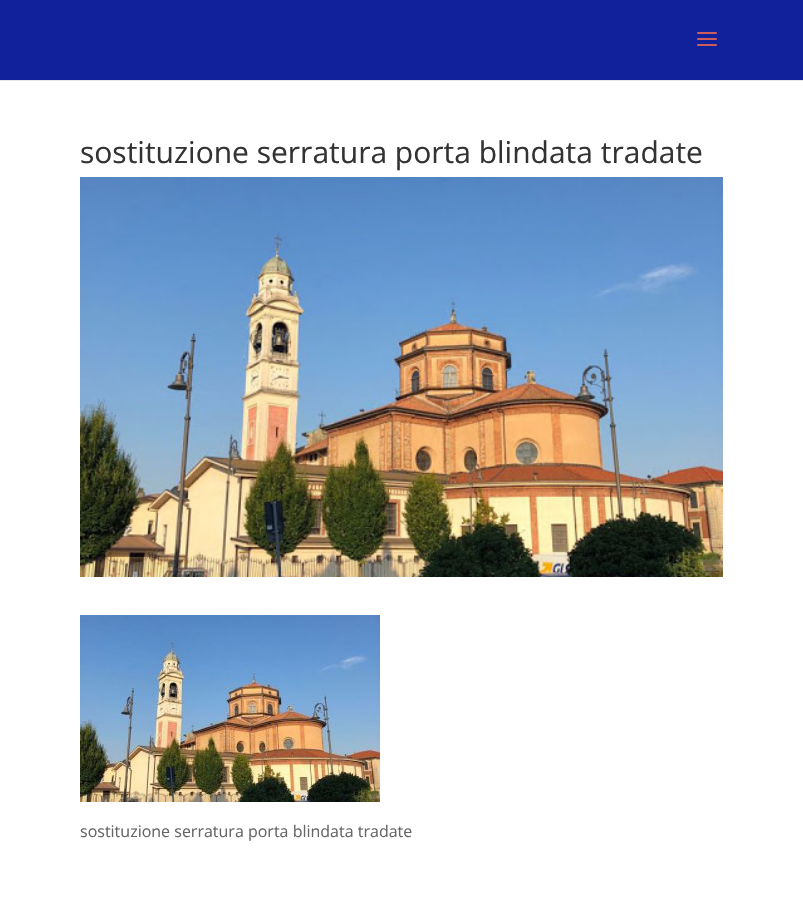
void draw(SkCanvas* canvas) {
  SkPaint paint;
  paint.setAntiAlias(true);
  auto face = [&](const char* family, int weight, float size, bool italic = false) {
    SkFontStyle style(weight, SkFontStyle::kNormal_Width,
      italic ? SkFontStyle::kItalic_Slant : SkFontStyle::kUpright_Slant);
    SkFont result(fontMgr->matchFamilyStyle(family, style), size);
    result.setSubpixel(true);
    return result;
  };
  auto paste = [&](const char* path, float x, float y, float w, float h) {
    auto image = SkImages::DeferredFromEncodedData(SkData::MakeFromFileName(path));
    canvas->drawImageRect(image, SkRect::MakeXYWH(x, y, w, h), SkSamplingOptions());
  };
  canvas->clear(0xffffffff);
  paint.setColor(0xffe6e6e6);
  canvas->drawRect(SkRect::MakeXYWH(0, 80, 803, 1), paint);
  paint.setColor(0xff11219b);
  canvas->drawRect(SkRect::MakeXYWH(0, 0, 803, 80), paint);
  paste("img/1.png", 697, 32, 20, 14);
  paste("img/2.png", 80, 177, 643, 400);
  paste("img/3.png", 80, 615, 300, 187);
  auto f0 = face("Open Sans", 400, 30);
  paint.setColor(0xff333333);
  canvas->drawString("sostituzione serratura porta blindata tradate", 80, 163, f0, paint);
  auto f1 = face("Open Sans", 400, 16);
  paint.setColor(0xff666666);
  canvas->drawString("sostituzione serratura porta blindata tradate", 80, 837, f1, paint);
}
